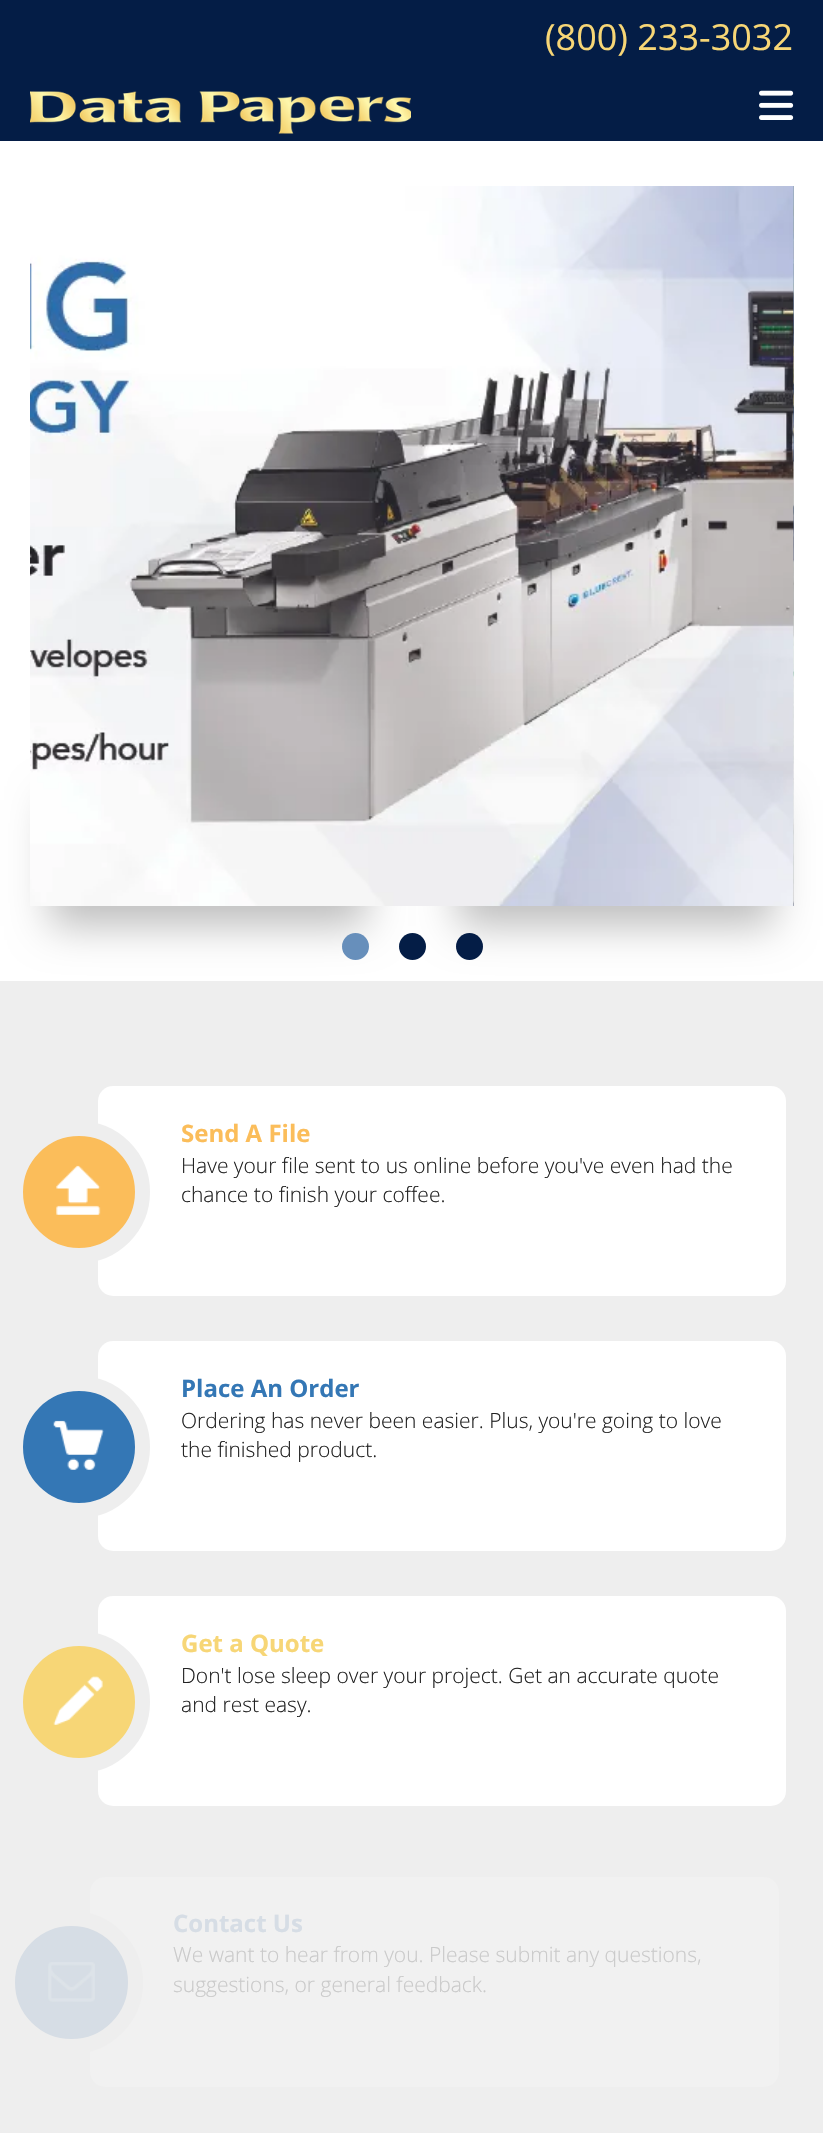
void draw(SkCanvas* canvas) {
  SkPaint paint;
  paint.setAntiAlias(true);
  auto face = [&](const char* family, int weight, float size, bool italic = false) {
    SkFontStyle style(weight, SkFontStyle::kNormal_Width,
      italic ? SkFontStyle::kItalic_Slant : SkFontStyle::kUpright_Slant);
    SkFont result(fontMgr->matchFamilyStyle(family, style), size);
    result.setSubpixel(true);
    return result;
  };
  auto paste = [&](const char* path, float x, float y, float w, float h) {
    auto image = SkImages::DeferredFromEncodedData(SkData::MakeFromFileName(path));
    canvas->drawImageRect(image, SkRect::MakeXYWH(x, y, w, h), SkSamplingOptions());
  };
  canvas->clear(0xff041d46);
  paste("img/1.png", 759, 90, 35, 30);
  paste("img/2.png", 30, 91, 381, 43);
  paint.setColor(0xffffffff);
  canvas->drawRect(SkRect::MakeXYWH(0, 141, 823, 840), paint);
  paint.setColor(0xffeeeeee);
  canvas->drawRect(SkRect::MakeXYWH(0, 981, 823, 1152), paint);
  paint.setColor(0x42000000);
  paint.setMaskFilter(SkMaskFilter::MakeBlur(kNormal_SkBlurStyle, 21));
  canvas->drawRect(SkRect::MakeXYWH(458, 800, 316, 126), paint);
  paint.setMaskFilter(nullptr);
  paste("img/4.png", 793, 186, 1, 720);
  paste("img/5.png", 793, 186, 1, 720);
  paste("img/6.png", 793, 186, 1, 720);
  paste("img/7.png", 793, 186, 1, 720);
  paste("img/8.png", 793, 186, 1, 720);
  paste("img/9.png", 793, 186, 1, 720);
  paste("img/10.png", 793, 186, 1, 720);
  paste("img/11.png", 793, 186, 1, 720);
  paint.setMaskFilter(SkMaskFilter::MakeBlur(kNormal_SkBlurStyle, 21));
  canvas->drawRect(SkRect::MakeXYWH(50, 800, 316, 126), paint);
  paint.setMaskFilter(nullptr);
  paste("img/3.png", 30, 186, 764, 720);
  paint.setColor(0xff678fbb);
  canvas->drawCircle(355.5f, 946.5f, 13.5f, paint);
  paint.setColor(0xff041d46);
  canvas->drawCircle(412.5f, 946.5f, 13.5f, paint);
  canvas->drawCircle(469.5f, 946.5f, 13.5f, paint);
  paint.setColor(0xffffffff);
  canvas->drawRoundRect(SkRect::MakeXYWH(98, 1086, 688, 210), 15, 15, paint);
  paint.setColor(0xfffbbd5a);
  canvas->drawCircle(79, 1192, 63.5f, paint);
  paint.setStroke(true);
  paint.setStrokeWidth(15);
  paint.setColor(0xffeeeeee);
  canvas->drawCircle(79, 1192, 63.5f, paint);
  paste("img/12.png", 56, 1165, 45, 50);
  paint.setStroke(false);
  paint.setColor(0xffffffff);
  canvas->drawRoundRect(SkRect::MakeXYWH(98, 1341, 688, 210), 15, 15, paint);
  paint.setColor(0xff3477b5);
  canvas->drawCircle(79, 1447, 63.5f, paint);
  paint.setStroke(true);
  paint.setColor(0xffeeeeee);
  canvas->drawCircle(79, 1447, 63.5f, paint);
  paste("img/13.png", 53, 1420, 51, 50);
  paint.setStroke(false);
  paint.setColor(0xffffffff);
  canvas->drawRoundRect(SkRect::MakeXYWH(98, 1596, 688, 210), 15, 15, paint);
  paint.setColor(0xfff7d676);
  canvas->drawCircle(79, 1702, 63.5f, paint);
  paint.setStroke(true);
  paint.setColor(0xffeeeeee);
  canvas->drawCircle(79, 1702, 63.5f, paint);
  paste("img/14.png", 53, 1676, 50, 49);
  paint.setStroke(false);
  paint.setColor(0xfff1f1f1);
  canvas->drawRoundRect(SkRect::MakeXYWH(90, 1877, 689, 210), 15, 15, paint);
  paint.setColor(0xffd6dde5);
  canvas->drawCircle(71.5f, 1982.5f, 64, paint);
  paint.setStroke(true);
  paint.setColor(0xffeeeeee);
  canvas->drawCircle(71.5f, 1982.5f, 64, paint);
  paste("img/15.png", 48, 1962, 47, 40);
  auto f0 = face("Open Sans", 400, 36);
  paint.setStroke(false);
  paint.setColor(0xfff7d676);
  canvas->drawString("(800) 233-3032", 545, 50, f0, paint);
  auto f1 = face("Open Sans", 700, 24);
  paint.setColor(0xfffbbd5a);
  canvas->drawString("Send A File", 181, 1142, f1, paint);
  auto f2 = face("Open Sans", 300, 21);
  paint.setColor(0xff222222);
  canvas->drawString("Have your file sent to us online before you've even had the", 181, 1173, f2, paint);
  canvas->drawString("chance to finish your coffee.", 181, 1202, f2, paint);
  paint.setColor(0xff3477b5);
  canvas->drawString("Place An Order", 181, 1397, f1, paint);
  paint.setColor(0xff222222);
  canvas->drawString("Ordering has never been easier. Plus, you're going to love", 181, 1428, f2, paint);
  canvas->drawString("the finished product.", 181, 1457, f2, paint);
  paint.setColor(0xfff7d676);
  canvas->drawString("Get a Quote", 181, 1652, f1, paint);
  paint.setColor(0xff222222);
  canvas->drawString("Don't lose sleep over your project. Get an accurate quote", 181, 1683, f2, paint);
  canvas->drawString("and rest easy.", 181, 1712, f2, paint);
  paint.setColor(0xffd6dde5);
  canvas->drawString("Contact Us", 173, 1932, f1, paint);
  paint.setColor(0xffcacaca);
  canvas->drawString("We want to hear from you. Please submit any questions,", 173, 1962, f2, paint);
  canvas->drawString("suggestions, or general feedback.", 173, 1992, f2, paint);
}
